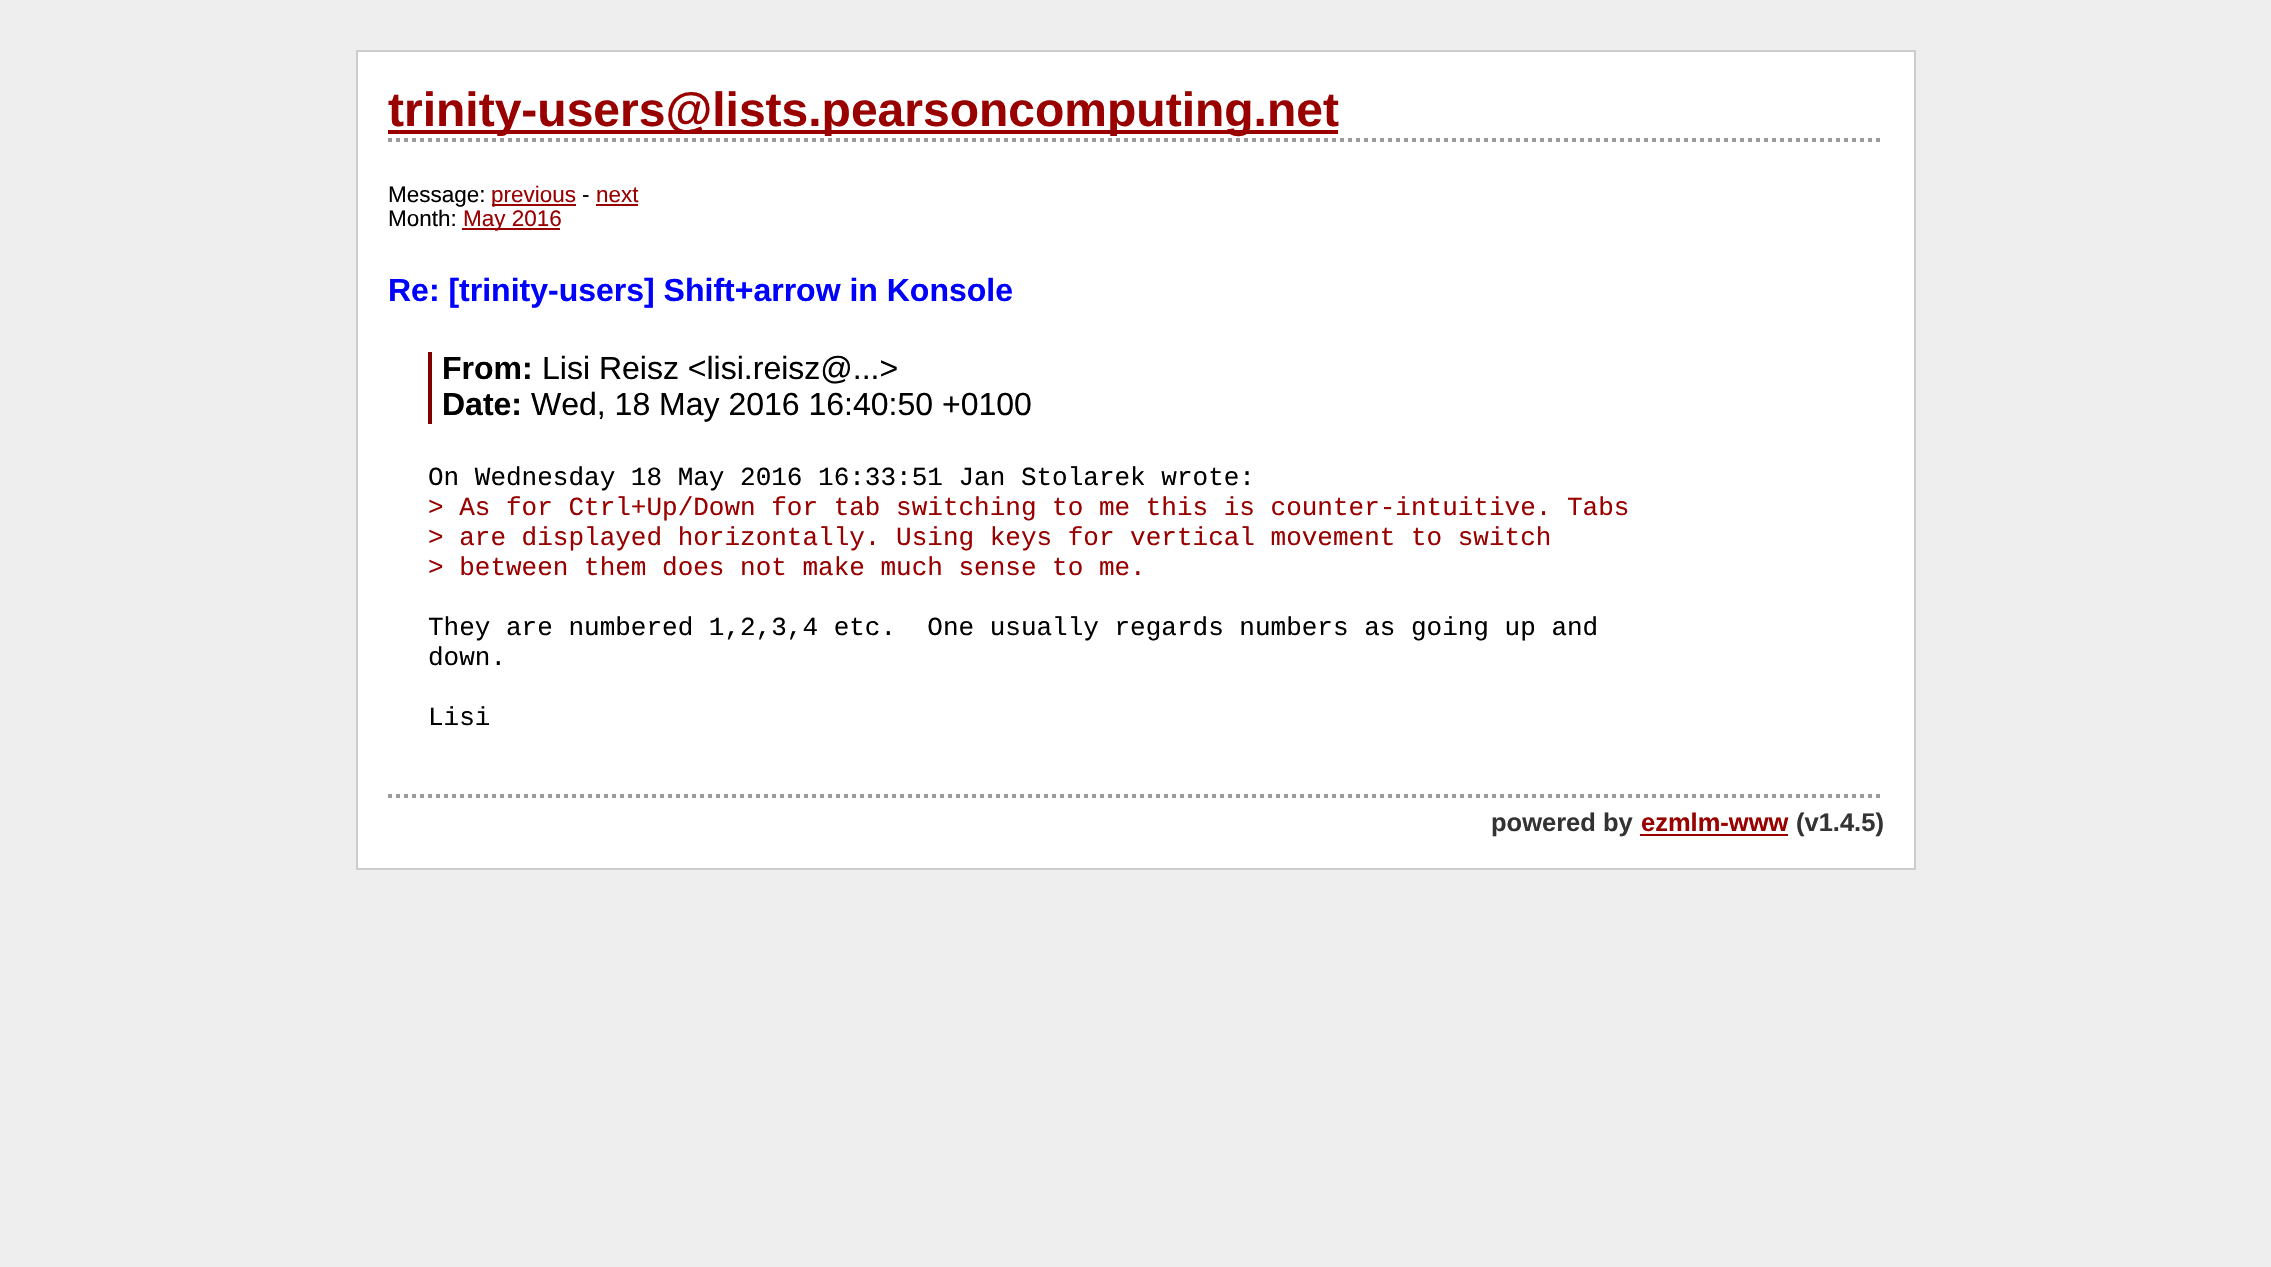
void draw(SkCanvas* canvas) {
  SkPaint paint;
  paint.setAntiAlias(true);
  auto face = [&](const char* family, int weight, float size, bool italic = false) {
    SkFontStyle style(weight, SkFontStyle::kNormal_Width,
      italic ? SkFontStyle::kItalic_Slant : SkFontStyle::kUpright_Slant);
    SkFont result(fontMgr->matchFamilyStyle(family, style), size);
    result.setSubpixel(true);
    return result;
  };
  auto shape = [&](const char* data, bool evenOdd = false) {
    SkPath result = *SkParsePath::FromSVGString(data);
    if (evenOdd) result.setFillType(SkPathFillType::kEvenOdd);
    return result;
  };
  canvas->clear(0xffeeeeee);
  paint.setColor(0xffffffff);
  canvas->drawRect(SkRect::MakeXYWH(357, 51, 1558, 818), paint);
  paint.setStroke(true);
  paint.setStrokeWidth(2);
  paint.setColor(0xffcccccc);
  canvas->drawRect(SkRect::MakeXYWH(357, 51, 1558, 818), paint);
  paint.setStrokeWidth(4);
  paint.setColor(0xff999999);
  paint.setPathEffect(SkDashPathEffect::Make({{4, 4}}, 0));
  canvas->drawPath(shape("M388 140H1884"), paint);
  paint.setPathEffect(nullptr);
  paint.setStroke(false);
  {
    const struct { float x, y, w, h; SkColor color; } items[] = {
      {388, 130, 950, 4, 0xff990000},
      {492, 204, 84, 2, 0xff990000},
      {596, 204, 42, 2, 0xff990000},
      {462, 228, 98, 2, 0xff990000},
      {428, 352, 4, 72, 0xff800000},
    };
    for (auto [x, y, w, h, color] : items) {
      paint.setColor(color);
      canvas->drawRect(SkRect::MakeXYWH(x, y, w, h), paint);
    }
  }
  paint.setStroke(true);
  paint.setColor(0xff999999);
  paint.setPathEffect(SkDashPathEffect::Make({{4, 4}}, 0));
  canvas->drawPath(shape("M388 796H1884"), paint);
  paint.setPathEffect(nullptr);
  paint.setStroke(false);
  paint.setColor(0xff990000);
  canvas->drawRect(SkRect::MakeXYWH(1640, 834, 148, 2), paint);
  auto f0 = face("Liberation Sans", 700, 48);
  canvas->drawString("trinity-users@lists.pearsoncomputing.net", 388, 126, f0, paint);
  auto f1 = face("Liberation Sans", 400, 22.5f);
  paint.setColor(0xff000000);
  canvas->drawString("Message:", 388, 202, f1, paint);
  paint.setColor(0xff990000);
  canvas->drawString("previous", 491, 202, f1, paint);
  paint.setColor(0xff000000);
  canvas->drawString("-", 582, 202, f1, paint);
  paint.setColor(0xff990000);
  canvas->drawString("next", 596, 202, f1, paint);
  paint.setColor(0xff000000);
  canvas->drawString("Month:", 388, 226, f1, paint);
  paint.setColor(0xff990000);
  canvas->drawString("May 2016", 463, 226, f1, paint);
  auto f2 = face("Liberation Sans", 700, 32);
  paint.setColor(0xff0000ff);
  canvas->drawString("Re: [trinity-users] Shift+arrow in Konsole", 388, 301, f2, paint);
  paint.setColor(0xff000000);
  canvas->drawString("From:", 442, 379, f2, paint);
  auto f3 = face("Liberation Sans", 400, 32);
  canvas->drawString("Lisi Reisz <lisi.reisz@...>", 542, 379, f3, paint);
  canvas->drawString("Date:", 442, 415, f2, paint);
  canvas->drawString("Wed, 18 May 2016 16:40:50 +0100", 531, 415, f3, paint);
  auto f4 = face("Liberation Mono", 400, 26);
  canvas->drawString("On Wednesday 18 May 2016 16:33:51 Jan Stolarek wrote:", 428, 485, f4, paint);
  paint.setColor(0xff990000);
  {
    const struct { const char* s; float x, y; } items[] = {
      {"> As for Ctrl+Up/Down for tab switching to me this is counter-intuitive. Tabs", 428, 515},
      {"> are displayed horizontally. Using keys for vertical movement to switch", 428, 545},
      {"> between them does not make much sense to me.", 428, 575},
    };
    for (auto [s, x, y] : items) {
      canvas->drawString(s, x, y, f4, paint);
    }
  }
  paint.setColor(0xff000000);
  {
    const struct { const char* s; float x, y; } items[] = {
      {"They are numbered 1,2,3,4 etc.  One usually regards numbers as going up and", 428, 635},
      {"down.", 428, 665},
      {"Lisi", 428, 725},
    };
    for (auto [s, x, y] : items) {
      canvas->drawString(s, x, y, f4, paint);
    }
  }
  auto f5 = face("Liberation Sans", 700, 25.5f);
  paint.setColor(0xff333333);
  canvas->drawString("powered by", 1491, 831, f5, paint);
  paint.setColor(0xff990000);
  canvas->drawString("ezmlm-www", 1641, 831, f5, paint);
  paint.setColor(0xff333333);
  canvas->drawString("(v1.4.5)", 1796, 831, f5, paint);
}
